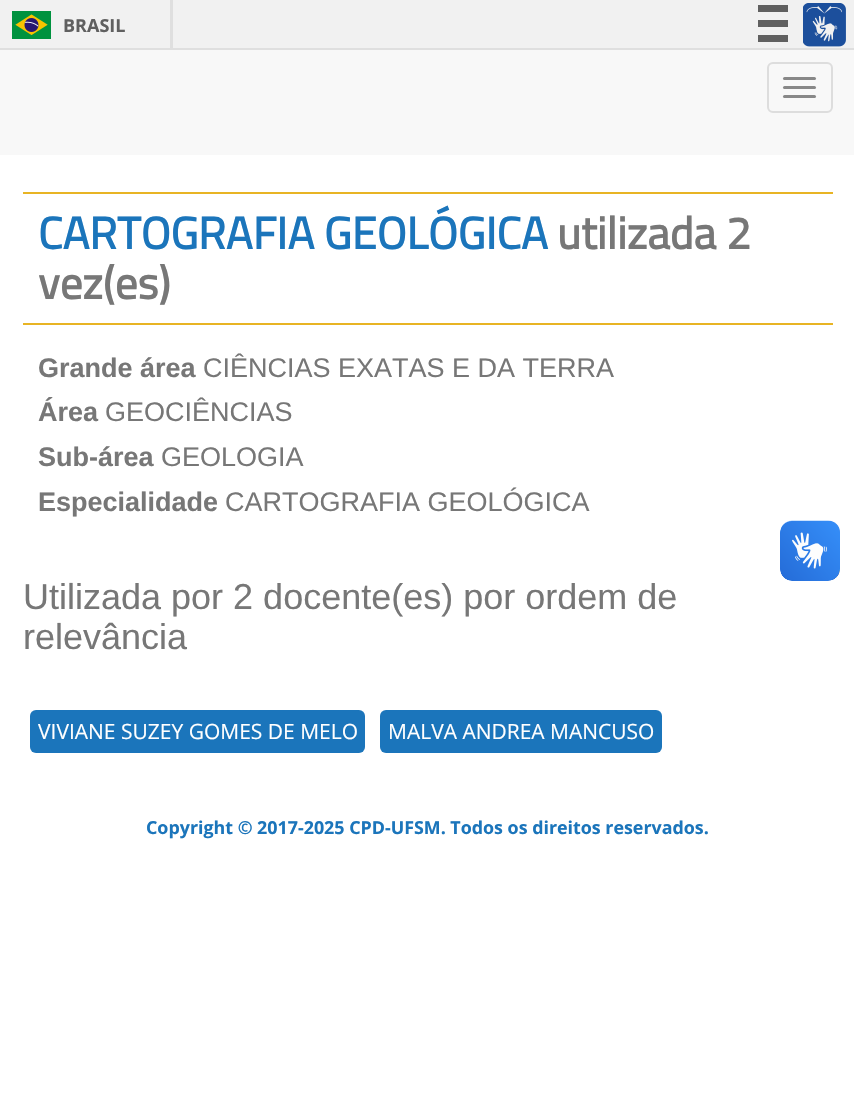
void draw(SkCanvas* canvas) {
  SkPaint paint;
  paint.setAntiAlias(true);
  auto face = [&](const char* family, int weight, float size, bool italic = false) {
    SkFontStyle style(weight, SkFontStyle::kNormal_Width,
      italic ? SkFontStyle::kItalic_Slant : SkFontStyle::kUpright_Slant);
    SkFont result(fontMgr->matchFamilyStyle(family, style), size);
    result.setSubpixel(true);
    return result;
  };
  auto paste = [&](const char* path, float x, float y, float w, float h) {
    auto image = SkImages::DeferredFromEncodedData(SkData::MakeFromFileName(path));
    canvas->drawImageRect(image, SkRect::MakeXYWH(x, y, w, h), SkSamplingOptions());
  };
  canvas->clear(0xffffffff);
  {
    const struct { float x, y, w, h; SkColor color; } items[] = {
      {0, 0, 854, 48, 0xfff1f1f1},
      {0, 48, 854, 2, 0xffdfdfdf},
      {170, 0, 3, 48, 0xffdfdfdf},
    };
    for (auto [x, y, w, h, color] : items) {
      paint.setColor(color);
      canvas->drawRect(SkRect::MakeXYWH(x, y, w, h), paint);
    }
  }
  paste("img/1.png", 12, 11, 39, 28);
  {
    const struct { float x, y, w, h; SkColor color; } items[] = {
      {758, 5, 30, 7, 0xff606060},
      {758, 20, 30, 7, 0xff606060},
      {758, 35, 30, 7, 0xff606060},
    };
    for (auto [x, y, w, h, color] : items) {
      paint.setColor(color);
      canvas->drawRect(SkRect::MakeXYWH(x, y, w, h), paint);
    }
  }
  paste("img/2.png", 803, 3, 43, 44);
  paint.setColor(0xfff8f8f8);
  canvas->drawRect(SkRect::MakeXYWH(0, 50, 854, 105), paint);
  paint.setStroke(true);
  paint.setStrokeWidth(2);
  paint.setColor(0xffdddddd);
  canvas->drawRoundRect(SkRect::MakeXYWH(768, 63, 64, 49), 5, 5, paint);
  paint.setStroke(false);
  paint.setColor(0xff888888);
  canvas->drawRoundRect(SkRect::MakeXYWH(783, 77, 33, 3), 1.5f, 1.5f, paint);
  canvas->drawRoundRect(SkRect::MakeXYWH(783, 86, 33, 3), 1.5f, 1.5f, paint);
  canvas->drawRoundRect(SkRect::MakeXYWH(783, 95, 33, 3), 1.5f, 1.5f, paint);
  paint.setColor(0xffe8b424);
  canvas->drawRect(SkRect::MakeXYWH(23, 192, 810, 2), paint);
  canvas->drawRect(SkRect::MakeXYWH(23, 323, 810, 2), paint);
  paint.setColor(0xff1b75bb);
  canvas->drawRoundRect(SkRect::MakeXYWH(30, 710, 335, 43), 6, 6, paint);
  canvas->drawRoundRect(SkRect::MakeXYWH(380, 710, 282, 43), 6, 6, paint);
  paste("img/3.png", 780, 520, 60, 61);
  paste("img/4.png", 780, 521, 60, 60);
  auto f0 = face("Open Sans", 700, 18);
  paint.setColor(0xff606060);
  canvas->drawString("BRASIL", 63, 32, f0, paint);
  auto f1 = face("Titillium Web", 700, 45);
  paint.setColor(0xff1b75bb);
  canvas->drawString("CARTOGRAFIA GEOLÓGICA", 38, 249, f1, paint);
  paint.setColor(0xff777777);
  canvas->drawString("utilizada 2", 557, 249, f1, paint);
  canvas->drawString("vez(es)", 38, 299, f1, paint);
  auto f2 = face("Liberation Sans", 700, 27);
  canvas->drawString("Grande área", 38, 377, f2, paint);
  auto f3 = face("Liberation Sans", 400, 27);
  canvas->drawString("CIÊNCIAS EXATAS E DA TERRA", 203, 377, f3, paint);
  canvas->drawString("Área", 38, 421, f2, paint);
  canvas->drawString("GEOCIÊNCIAS", 105, 421, f3, paint);
  canvas->drawString("Sub-área", 38, 466, f2, paint);
  canvas->drawString("GEOLOGIA", 161, 466, f3, paint);
  canvas->drawString("Especialidade", 38, 511, f2, paint);
  canvas->drawString("CARTOGRAFIA GEOLÓGICA", 225, 511, f3, paint);
  auto f4 = face("Liberation Sans", 400, 36);
  canvas->drawString("Utilizada por 2 docente(es) por ordem de", 23, 609, f4, paint);
  canvas->drawString("relevância", 23, 649, f4, paint);
  auto f5 = face("Open Sans", 400, 21);
  paint.setColor(0xffffffff);
  canvas->drawString("VIVIANE SUZEY GOMES DE MELO", 38, 739, f5, paint);
  canvas->drawString("MALVA ANDREA MANCUSO", 388, 739, f5, paint);
  auto f6 = face("Open Sans", 700, 17.85f);
  paint.setColor(0xff1b75bb);
  canvas->drawString("Copyright © 2017-2025 CPD-UFSM. Todos os direitos reservados.", 146, 834, f6, paint);
}
